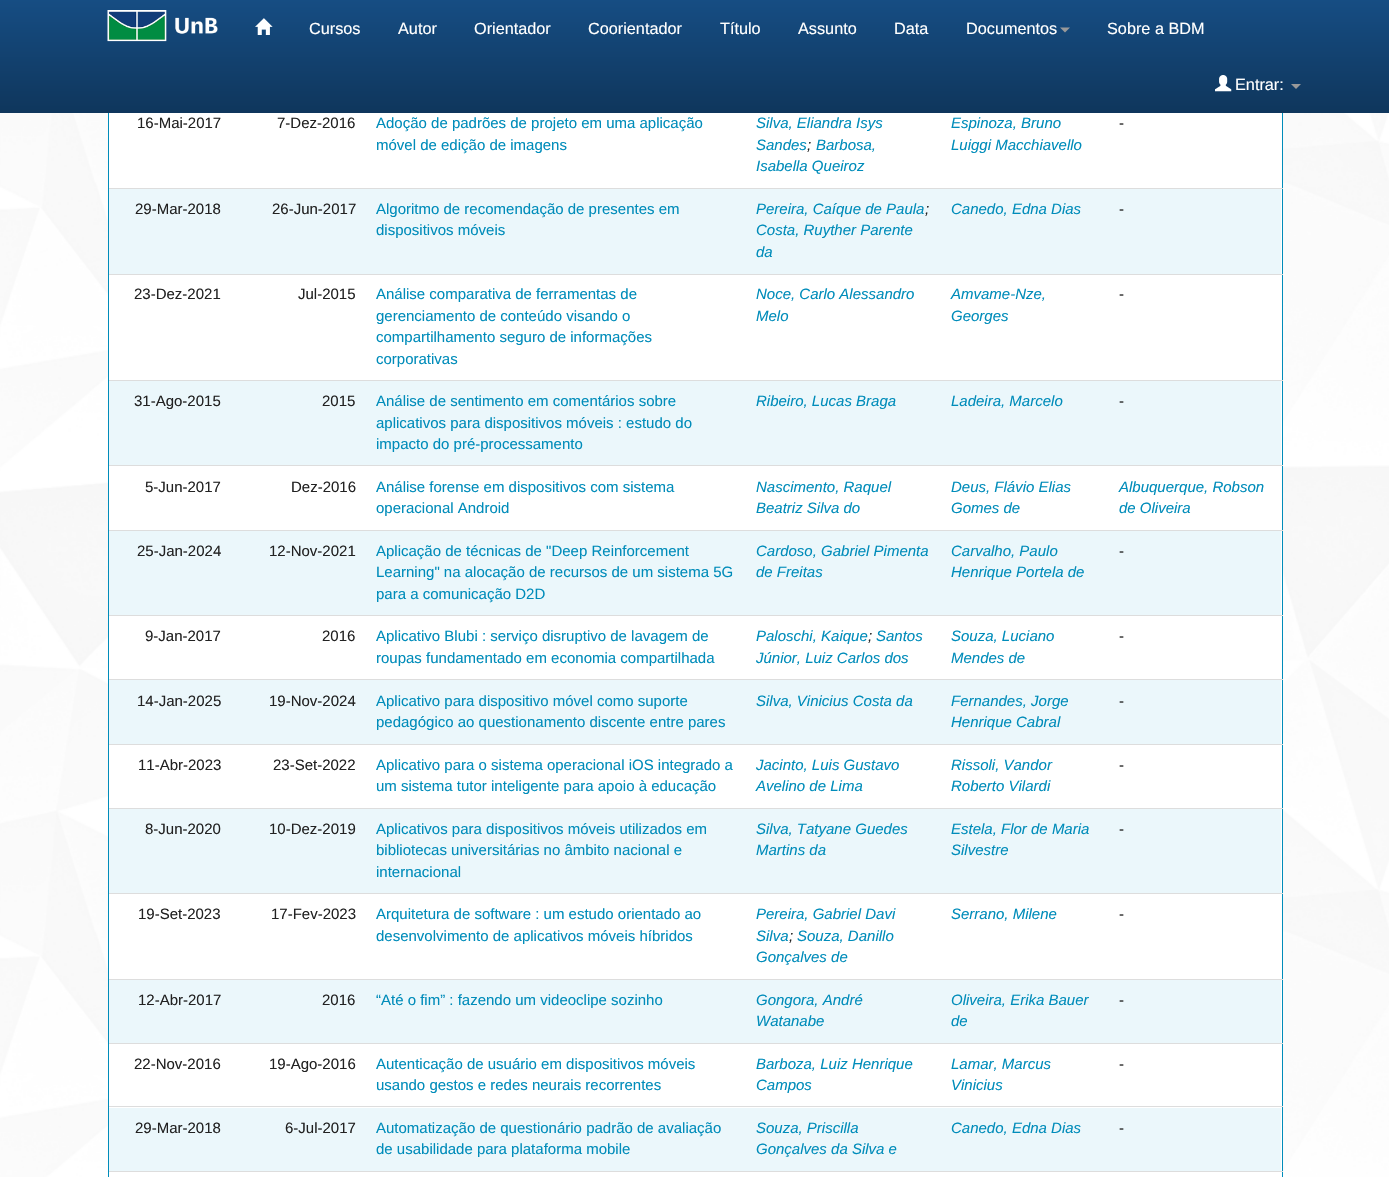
void draw(SkCanvas* canvas) {
  SkPaint paint;
  paint.setAntiAlias(true);
  auto face = [&](const char* family, int weight, float size, bool italic = false) {
    SkFontStyle style(weight, SkFontStyle::kNormal_Width,
      italic ? SkFontStyle::kItalic_Slant : SkFontStyle::kUpright_Slant);
    SkFont result(fontMgr->matchFamilyStyle(family, style), size);
    result.setSubpixel(true);
    return result;
  };
  auto paste = [&](const char* path, float x, float y, float w, float h) {
    auto image = SkImages::DeferredFromEncodedData(SkData::MakeFromFileName(path));
    canvas->drawImageRect(image, SkRect::MakeXYWH(x, y, w, h), SkSamplingOptions());
  };
  auto shape = [&](const char* data, bool evenOdd = false) {
    SkPath result = *SkParsePath::FromSVGString(data);
    if (evenOdd) result.setFillType(SkPathFillType::kEvenOdd);
    return result;
  };
  canvas->clear(0xffffffff);
  paste("img/1.png", 0, 113, 1389, 1064);
  paint.setColor(0xffffffff);
  canvas->drawRect(SkRect::MakeXYWH(109, 113, 1173, 1064), paint);
  paint.setStroke(true);
  paint.setStrokeWidth(1);
  paint.setColor(0xff008cba);
  canvas->drawRect(SkRect::MakeXYWH(108.5f, -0.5f, 1174, 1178), paint);
  paint.setStroke(false);
  {
    const SkColor colors[] = {0xff164d83, 0xff0f365c};
    const float stops[] = {0, 1};
    const SkPoint ends[] = {{695, 0}, {695, 113}};
    paint.setShader(SkGradientShader::MakeLinear(ends, colors, stops, 2, SkTileMode::kClamp));
    paint.setAlpha(255);
  }
  canvas->drawRect(SkRect::MakeXYWH(0, 0, 1389, 113), paint);
  paste("img/2.png", 107, 10, 111, 32);
  paste("img/3.png", 255, 18, 18, 17);
  paint.setShader(nullptr);
  paint.setColor(0xff999999);
  canvas->drawPath(shape("M1060 27.5H1070L1065 32.5Z"), paint);
  paste("img/4.png", 1215, 75, 17, 17);
  canvas->drawPath(shape("M1291 84H1301L1296 89Z"), paint);
  {
    const struct { float x, y, w, h; SkColor color; } items[] = {
      {109, 189, 1172, 85, 0xffebf7fb},
      {109, 188, 1174, 1, 0xffdddddd},
      {109, 274, 1174, 1, 0xffdddddd},
      {109, 381, 1172, 84, 0xffebf7fb},
      {109, 380, 1174, 1, 0xffdddddd},
      {109, 465, 1174, 1, 0xffdddddd},
      {109, 531, 1172, 84, 0xffebf7fb},
      {109, 530, 1174, 1, 0xffdddddd},
      {109, 615, 1174, 1, 0xffdddddd},
      {109, 680, 1172, 64, 0xffebf7fb},
      {109, 679, 1174, 1, 0xffdddddd},
      {109, 744, 1174, 1, 0xffdddddd},
      {109, 809, 1172, 84, 0xffebf7fb},
      {109, 808, 1174, 1, 0xffdddddd},
      {109, 893, 1174, 1, 0xffdddddd},
      {109, 980, 1172, 63, 0xffebf7fb},
      {109, 979, 1174, 1, 0xffdddddd},
      {109, 1043, 1174, 1, 0xffdddddd},
      {109, 1108, 1172, 63, 0xffebf7fb},
      {109, 1106, 1174, 1, 0xffdddddd},
      {109, 1171, 1174, 1, 0xffdddddd},
    };
    for (auto [x, y, w, h, color] : items) {
      paint.setColor(color);
      canvas->drawRect(SkRect::MakeXYWH(x, y, w, h), paint);
    }
  }
  auto f0 = face("Liberation Sans", 400, 16.25f);
  paint.setColor(0xffffffff);
  {
    const struct { const char* s; float x, y; } items[] = {
      {"Cursos", 309, 34},
      {"Autor", 398, 34},
      {"Orientador", 474, 34},
      {"Coorientador", 588, 34},
      {"Título", 720, 34},
      {"Assunto", 798, 34},
      {"Data", 894, 34},
      {"Documentos", 966, 34},
      {"Sobre a BDM", 1107, 34},
      {"Entrar:", 1235, 90},
    };
    for (auto [s, x, y] : items) {
      canvas->drawString(s, x, y, f0, paint);
    }
  }
  auto f1 = face("Liberation Sans", 400, 15);
  paint.setColor(0xff222222);
  canvas->drawString("16-Mai-2017", 137, 128, f1, paint);
  canvas->drawString("7-Dez-2016", 277, 128, f1, paint);
  paint.setColor(0xff008cba);
  canvas->drawString("Adoção de padrões de projeto em uma aplicação", 376, 128, f1, paint);
  canvas->drawString("móvel de edição de imagens", 376, 150, f1, paint);
  auto f2 = face("Liberation Sans", 400, 15, true);
  canvas->drawString("Silva, Eliandra Isys", 756, 128, f2, paint);
  canvas->drawString("Sandes", 756, 150, f2, paint);
  paint.setColor(0xff222222);
  canvas->drawString(";", 807, 150, f2, paint);
  paint.setColor(0xff008cba);
  {
    const struct { const char* s; float x, y; } items[] = {
      {"Barbosa,", 816, 150},
      {"Isabella Queiroz", 756, 171},
      {"Espinoza, Bruno", 951, 128},
      {"Luiggi Macchiavello", 951, 150},
    };
    for (auto [s, x, y] : items) {
      canvas->drawString(s, x, y, f2, paint);
    }
  }
  paint.setColor(0xff222222);
  {
    const struct { const char* s; float x, y; } items[] = {
      {"-", 1119, 128},
      {"29-Mar-2018", 135, 214},
      {"26-Jun-2017", 272, 214},
    };
    for (auto [s, x, y] : items) {
      canvas->drawString(s, x, y, f1, paint);
    }
  }
  paint.setColor(0xff008cba);
  canvas->drawString("Algoritmo de recomendação de presentes em", 376, 214, f1, paint);
  canvas->drawString("dispositivos móveis", 376, 235, f1, paint);
  canvas->drawString("Pereira, Caíque de Paula", 756, 214, f2, paint);
  paint.setColor(0xff222222);
  canvas->drawString(";", 925, 214, f2, paint);
  paint.setColor(0xff008cba);
  {
    const struct { const char* s; float x, y; } items[] = {
      {"Costa, Ruyther Parente", 756, 235},
      {"da", 756, 257},
      {"Canedo, Edna Dias", 951, 214},
    };
    for (auto [s, x, y] : items) {
      canvas->drawString(s, x, y, f2, paint);
    }
  }
  paint.setColor(0xff222222);
  {
    const struct { const char* s; float x, y; } items[] = {
      {"-", 1119, 214},
      {"23-Dez-2021", 134, 299},
      {"Jul-2015", 298, 299},
    };
    for (auto [s, x, y] : items) {
      canvas->drawString(s, x, y, f1, paint);
    }
  }
  paint.setColor(0xff008cba);
  {
    const struct { const char* s; float x, y; } items[] = {
      {"Análise comparativa de ferramentas de", 376, 299},
      {"gerenciamento de conteúdo visando o", 376, 321},
      {"compartilhamento seguro de informações", 376, 342},
      {"corporativas", 376, 364},
    };
    for (auto [s, x, y] : items) {
      canvas->drawString(s, x, y, f1, paint);
    }
  }
  {
    const struct { const char* s; float x, y; } items[] = {
      {"Noce, Carlo Alessandro", 756, 299},
      {"Melo", 756, 321},
      {"Amvame-Nze,", 951, 299},
      {"Georges", 951, 321},
    };
    for (auto [s, x, y] : items) {
      canvas->drawString(s, x, y, f2, paint);
    }
  }
  paint.setColor(0xff222222);
  {
    const struct { const char* s; float x, y; } items[] = {
      {"-", 1119, 299},
      {"31-Ago-2015", 134, 406},
      {"2015", 322, 406},
    };
    for (auto [s, x, y] : items) {
      canvas->drawString(s, x, y, f1, paint);
    }
  }
  paint.setColor(0xff008cba);
  {
    const struct { const char* s; float x, y; } items[] = {
      {"Análise de sentimento em comentários sobre", 376, 406},
      {"aplicativos para dispositivos móveis : estudo do", 376, 428},
      {"impacto do pré-processamento", 376, 449},
    };
    for (auto [s, x, y] : items) {
      canvas->drawString(s, x, y, f1, paint);
    }
  }
  canvas->drawString("Ribeiro, Lucas Braga", 756, 406, f2, paint);
  canvas->drawString("Ladeira, Marcelo", 951, 406, f2, paint);
  paint.setColor(0xff222222);
  {
    const struct { const char* s; float x, y; } items[] = {
      {"-", 1119, 406},
      {"5-Jun-2017", 145, 492},
      {"Dez-2016", 291, 492},
    };
    for (auto [s, x, y] : items) {
      canvas->drawString(s, x, y, f1, paint);
    }
  }
  paint.setColor(0xff008cba);
  canvas->drawString("Análise forense em dispositivos com sistema", 376, 492, f1, paint);
  canvas->drawString("operacional Android", 376, 513, f1, paint);
  {
    const struct { const char* s; float x, y; } items[] = {
      {"Nascimento, Raquel", 756, 492},
      {"Beatriz Silva do", 756, 513},
      {"Deus, Flávio Elias", 951, 492},
      {"Gomes de", 951, 513},
      {"Albuquerque, Robson", 1119, 492},
      {"de Oliveira", 1119, 513},
    };
    for (auto [s, x, y] : items) {
      canvas->drawString(s, x, y, f2, paint);
    }
  }
  paint.setColor(0xff222222);
  canvas->drawString("25-Jan-2024", 137, 556, f1, paint);
  canvas->drawString("12-Nov-2021", 269, 556, f1, paint);
  paint.setColor(0xff008cba);
  {
    const struct { const char* s; float x, y; } items[] = {
      {"Aplicação de técnicas de \"Deep Reinforcement", 376, 556},
      {"Learning\" na alocação de recursos de um sistema 5G", 376, 577},
      {"para a comunicação D2D", 376, 599},
    };
    for (auto [s, x, y] : items) {
      canvas->drawString(s, x, y, f1, paint);
    }
  }
  {
    const struct { const char* s; float x, y; } items[] = {
      {"Cardoso, Gabriel Pimenta", 756, 556},
      {"de Freitas", 756, 577},
      {"Carvalho, Paulo", 951, 556},
      {"Henrique Portela de", 951, 577},
    };
    for (auto [s, x, y] : items) {
      canvas->drawString(s, x, y, f2, paint);
    }
  }
  paint.setColor(0xff222222);
  {
    const struct { const char* s; float x, y; } items[] = {
      {"-", 1119, 556},
      {"9-Jan-2017", 145, 641},
      {"2016", 322, 641},
    };
    for (auto [s, x, y] : items) {
      canvas->drawString(s, x, y, f1, paint);
    }
  }
  paint.setColor(0xff008cba);
  canvas->drawString("Aplicativo Blubi : serviço disruptivo de lavagem de", 376, 641, f1, paint);
  canvas->drawString("roupas fundamentado em economia compartilhada", 376, 663, f1, paint);
  canvas->drawString("Paloschi, Kaique", 756, 641, f2, paint);
  paint.setColor(0xff222222);
  canvas->drawString(";", 868, 641, f2, paint);
  paint.setColor(0xff008cba);
  {
    const struct { const char* s; float x, y; } items[] = {
      {"Santos", 876, 641},
      {"Júnior, Luiz Carlos dos", 756, 663},
      {"Souza, Luciano", 951, 641},
      {"Mendes de", 951, 663},
    };
    for (auto [s, x, y] : items) {
      canvas->drawString(s, x, y, f2, paint);
    }
  }
  paint.setColor(0xff222222);
  {
    const struct { const char* s; float x, y; } items[] = {
      {"-", 1119, 641},
      {"14-Jan-2025", 137, 706},
      {"19-Nov-2024", 269, 706},
    };
    for (auto [s, x, y] : items) {
      canvas->drawString(s, x, y, f1, paint);
    }
  }
  paint.setColor(0xff008cba);
  canvas->drawString("Aplicativo para dispositivo móvel como suporte", 376, 706, f1, paint);
  canvas->drawString("pedagógico ao questionamento discente entre pares", 376, 727, f1, paint);
  {
    const struct { const char* s; float x, y; } items[] = {
      {"Silva, Vinicius Costa da", 756, 706},
      {"Fernandes, Jorge", 951, 706},
      {"Henrique Cabral", 951, 727},
    };
    for (auto [s, x, y] : items) {
      canvas->drawString(s, x, y, f2, paint);
    }
  }
  paint.setColor(0xff222222);
  {
    const struct { const char* s; float x, y; } items[] = {
      {"-", 1119, 706},
      {"11-Abr-2023", 138, 770},
      {"23-Set-2022", 273, 770},
    };
    for (auto [s, x, y] : items) {
      canvas->drawString(s, x, y, f1, paint);
    }
  }
  paint.setColor(0xff008cba);
  canvas->drawString("Aplicativo para o sistema operacional iOS integrado a", 376, 770, f1, paint);
  canvas->drawString("um sistema tutor inteligente para apoio à educação", 376, 791, f1, paint);
  {
    const struct { const char* s; float x, y; } items[] = {
      {"Jacinto, Luis Gustavo", 756, 770},
      {"Avelino de Lima", 756, 791},
      {"Rissoli, Vandor", 951, 770},
      {"Roberto Vilardi", 951, 791},
    };
    for (auto [s, x, y] : items) {
      canvas->drawString(s, x, y, f2, paint);
    }
  }
  paint.setColor(0xff222222);
  {
    const struct { const char* s; float x, y; } items[] = {
      {"-", 1119, 770},
      {"8-Jun-2020", 145, 834},
      {"10-Dez-2019", 269, 834},
    };
    for (auto [s, x, y] : items) {
      canvas->drawString(s, x, y, f1, paint);
    }
  }
  paint.setColor(0xff008cba);
  {
    const struct { const char* s; float x, y; } items[] = {
      {"Aplicativos para dispositivos móveis utilizados em", 376, 834},
      {"bibliotecas universitárias no âmbito nacional e", 376, 855},
      {"internacional", 376, 877},
    };
    for (auto [s, x, y] : items) {
      canvas->drawString(s, x, y, f1, paint);
    }
  }
  {
    const struct { const char* s; float x, y; } items[] = {
      {"Silva, Tatyane Guedes", 756, 834},
      {"Martins da", 756, 855},
      {"Estela, Flor de Maria", 951, 834},
      {"Silvestre", 951, 855},
    };
    for (auto [s, x, y] : items) {
      canvas->drawString(s, x, y, f2, paint);
    }
  }
  paint.setColor(0xff222222);
  {
    const struct { const char* s; float x, y; } items[] = {
      {"-", 1119, 834},
      {"19-Set-2023", 138, 919},
      {"17-Fev-2023", 271, 919},
    };
    for (auto [s, x, y] : items) {
      canvas->drawString(s, x, y, f1, paint);
    }
  }
  paint.setColor(0xff008cba);
  canvas->drawString("Arquitetura de software : um estudo orientado ao", 376, 919, f1, paint);
  canvas->drawString("desenvolvimento de aplicativos móveis híbridos", 376, 941, f1, paint);
  canvas->drawString("Pereira, Gabriel Davi", 756, 919, f2, paint);
  canvas->drawString("Silva", 756, 941, f2, paint);
  paint.setColor(0xff222222);
  canvas->drawString(";", 789, 941, f2, paint);
  paint.setColor(0xff008cba);
  {
    const struct { const char* s; float x, y; } items[] = {
      {"Souza, Danillo", 797, 941},
      {"Gonçalves de", 756, 962},
      {"Serrano, Milene", 951, 919},
    };
    for (auto [s, x, y] : items) {
      canvas->drawString(s, x, y, f2, paint);
    }
  }
  paint.setColor(0xff222222);
  {
    const struct { const char* s; float x, y; } items[] = {
      {"-", 1119, 919},
      {"12-Abr-2017", 138, 1005},
      {"2016", 322, 1005},
    };
    for (auto [s, x, y] : items) {
      canvas->drawString(s, x, y, f1, paint);
    }
  }
  paint.setColor(0xff008cba);
  canvas->drawString("“Até o fim” : fazendo um videoclipe sozinho", 376, 1005, f1, paint);
  {
    const struct { const char* s; float x, y; } items[] = {
      {"Gongora, André", 756, 1005},
      {"Watanabe", 756, 1026},
      {"Oliveira, Erika Bauer", 951, 1005},
      {"de", 951, 1026},
    };
    for (auto [s, x, y] : items) {
      canvas->drawString(s, x, y, f2, paint);
    }
  }
  paint.setColor(0xff222222);
  {
    const struct { const char* s; float x, y; } items[] = {
      {"-", 1119, 1005},
      {"22-Nov-2016", 134, 1069},
      {"19-Ago-2016", 269, 1069},
    };
    for (auto [s, x, y] : items) {
      canvas->drawString(s, x, y, f1, paint);
    }
  }
  paint.setColor(0xff008cba);
  canvas->drawString("Autenticação de usuário em dispositivos móveis", 376, 1069, f1, paint);
  canvas->drawString("usando gestos e redes neurais recorrentes", 376, 1090, f1, paint);
  {
    const struct { const char* s; float x, y; } items[] = {
      {"Barboza, Luiz Henrique", 756, 1069},
      {"Campos", 756, 1090},
      {"Lamar, Marcus", 951, 1069},
      {"Vinicius", 951, 1090},
    };
    for (auto [s, x, y] : items) {
      canvas->drawString(s, x, y, f2, paint);
    }
  }
  paint.setColor(0xff222222);
  {
    const struct { const char* s; float x, y; } items[] = {
      {"-", 1119, 1069},
      {"29-Mar-2018", 135, 1133},
      {"6-Jul-2017", 285, 1133},
    };
    for (auto [s, x, y] : items) {
      canvas->drawString(s, x, y, f1, paint);
    }
  }
  paint.setColor(0xff008cba);
  canvas->drawString("Automatização de questionário padrão de avaliação", 376, 1133, f1, paint);
  canvas->drawString("de usabilidade para plataforma mobile", 376, 1154, f1, paint);
  {
    const struct { const char* s; float x, y; } items[] = {
      {"Souza, Priscilla", 756, 1133},
      {"Gonçalves da Silva e", 756, 1154},
      {"Canedo, Edna Dias", 951, 1133},
    };
    for (auto [s, x, y] : items) {
      canvas->drawString(s, x, y, f2, paint);
    }
  }
  paint.setColor(0xff222222);
  canvas->drawString("-", 1119, 1133, f1, paint);
}
